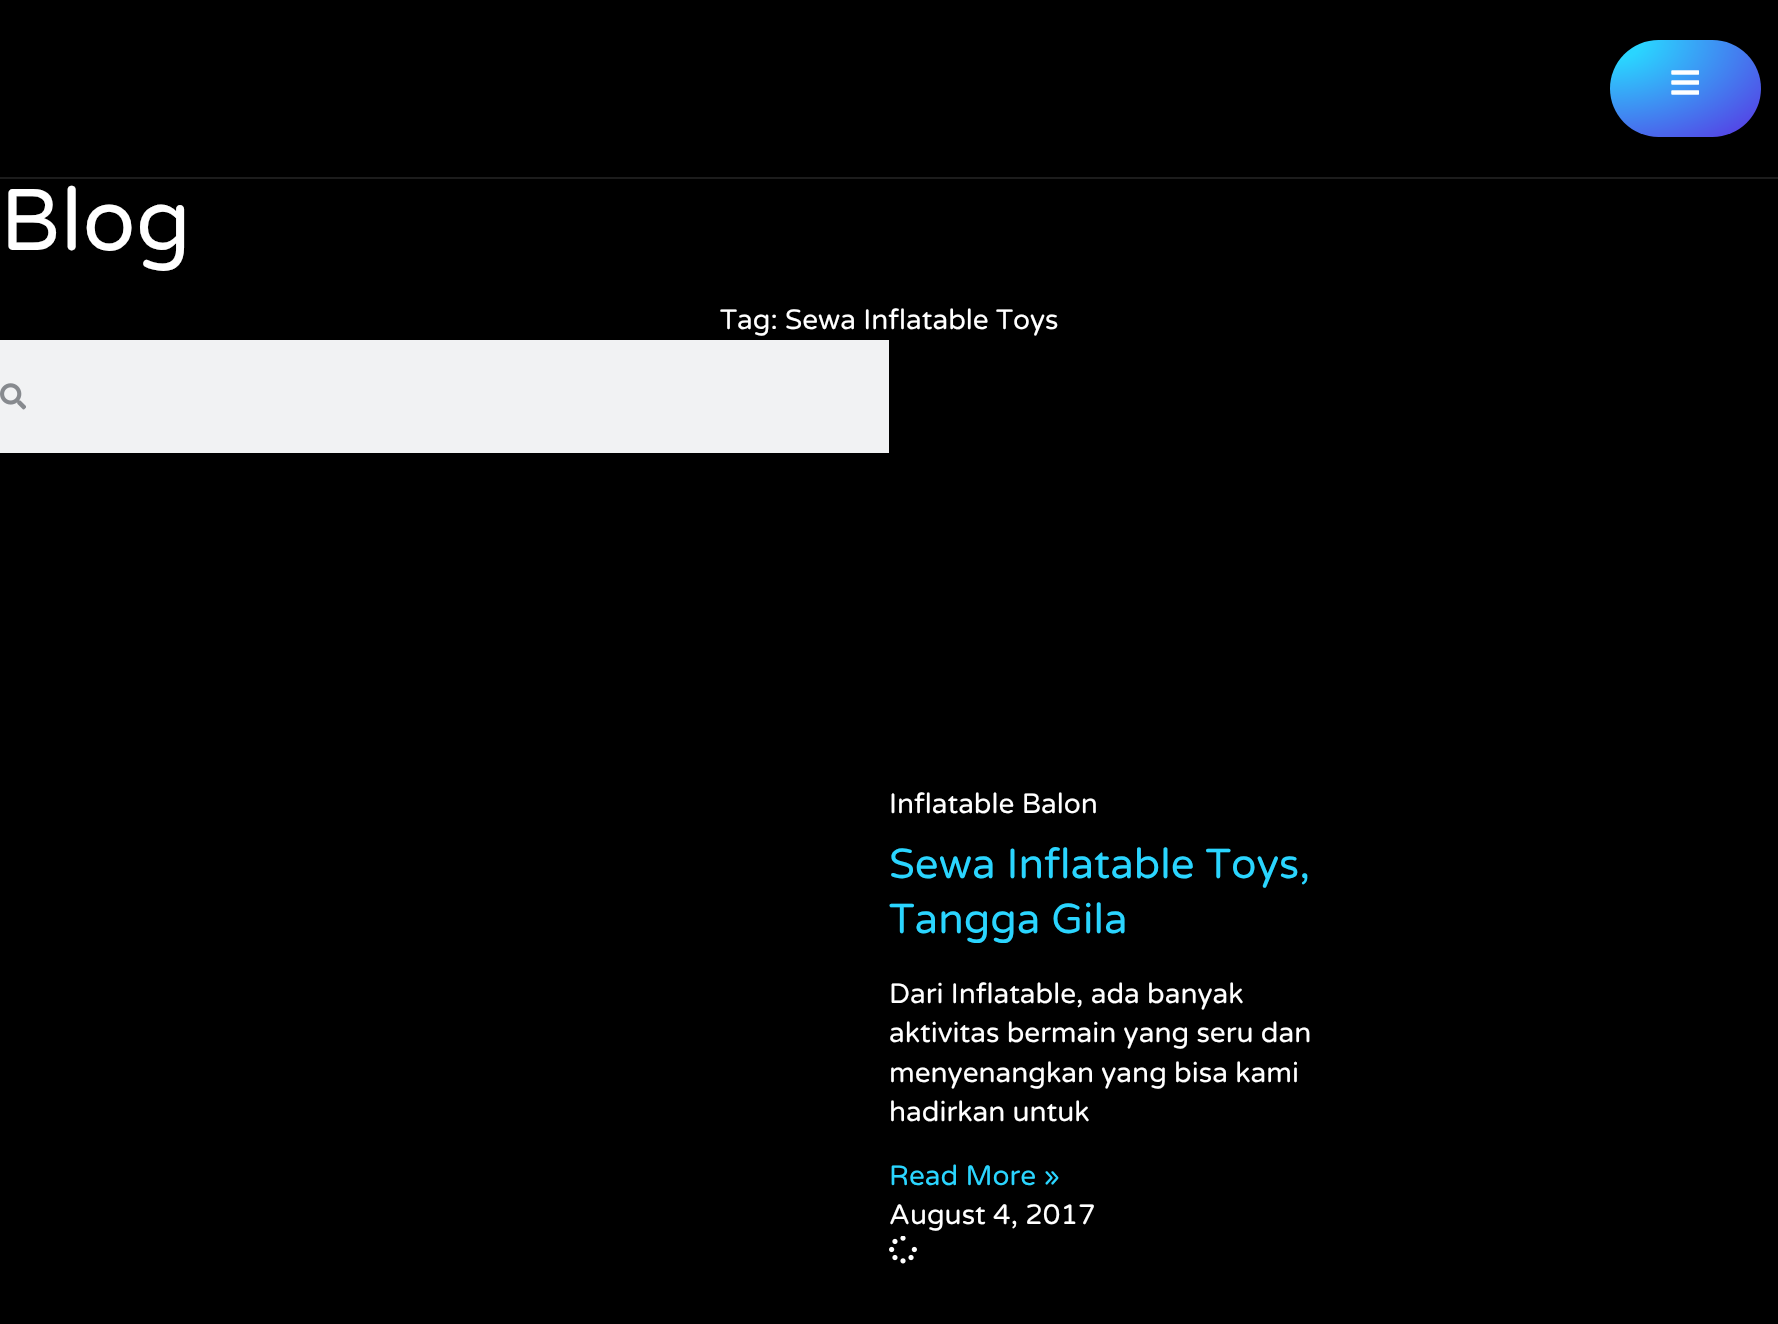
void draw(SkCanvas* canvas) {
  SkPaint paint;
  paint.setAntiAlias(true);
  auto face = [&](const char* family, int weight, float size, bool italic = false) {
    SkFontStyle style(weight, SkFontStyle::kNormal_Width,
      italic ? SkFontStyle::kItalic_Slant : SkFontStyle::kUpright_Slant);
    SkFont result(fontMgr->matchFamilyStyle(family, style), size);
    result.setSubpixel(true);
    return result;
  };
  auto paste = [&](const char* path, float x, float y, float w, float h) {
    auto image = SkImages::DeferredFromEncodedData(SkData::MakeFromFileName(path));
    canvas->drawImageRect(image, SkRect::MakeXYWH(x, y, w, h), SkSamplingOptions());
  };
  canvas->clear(0xff000000);
  paint.setColor(0xff1c1c1c);
  canvas->drawRect(SkRect::MakeXYWH(0, 177, 1778, 2), paint);
  {
    const SkColor colors[] = {0xff2ad5ff, 0xff563de4};
    const float stops[] = {0.15f, 0.95f};
    SkMatrix m = SkMatrix::Translate(1610, 40).preScale(213, 136);
    paint.setShader(SkGradientShader::MakeRadial({0, 0}, 1, colors, stops, 2, SkTileMode::kClamp, 0, &m));
    paint.setAlpha(255);
  }
  canvas->drawRoundRect(SkRect::MakeXYWH(1610, 40, 151, 97), 48.5f, 48.5f, paint);
  paste("img/1.png", 1671, 70, 28, 25);
  paint.setShader(nullptr);
  paint.setColor(0xfff1f2f3);
  canvas->drawRect(SkRect::MakeXYWH(0, 340, 889, 113), paint);
  paste("img/2.png", 0, 383, 26, 27);
  paste("img/3.png", 889, 1236, 28, 28);
  auto f0 = face("Varela Round", 400, 87.5f);
  paint.setColor(0xffffffff);
  canvas->drawString("Blog", 0, 250, f0, paint);
  auto f1 = face("Varela Round", 400, 28);
  canvas->drawString("Tag: Sewa Inflatable Toys", 720, 329, f1, paint);
  canvas->drawString("Inflatable Balon", 889, 813, f1, paint);
  auto f2 = face("Varela Round", 400, 42);
  paint.setColor(0xff2ad5ff);
  canvas->drawString("Sewa Inflatable Toys,", 889, 878, f2, paint);
  canvas->drawString("Tangga Gila", 889, 933, f2, paint);
  paint.setColor(0xffffffff);
  {
    const struct { const char* s; float x, y; } items[] = {
      {"Dari Inflatable, ada banyak", 889, 1003},
      {"aktivitas bermain yang seru dan", 889, 1042},
      {"menyenangkan yang bisa kami", 889, 1082},
      {"hadirkan untuk", 889, 1121},
    };
    for (auto [s, x, y] : items) {
      canvas->drawString(s, x, y, f1, paint);
    }
  }
  paint.setColor(0xff2ad5ff);
  canvas->drawString("Read More »", 889, 1185, f1, paint);
  paint.setColor(0xffffffff);
  canvas->drawString("August 4, 2017", 889, 1224, f1, paint);
}
